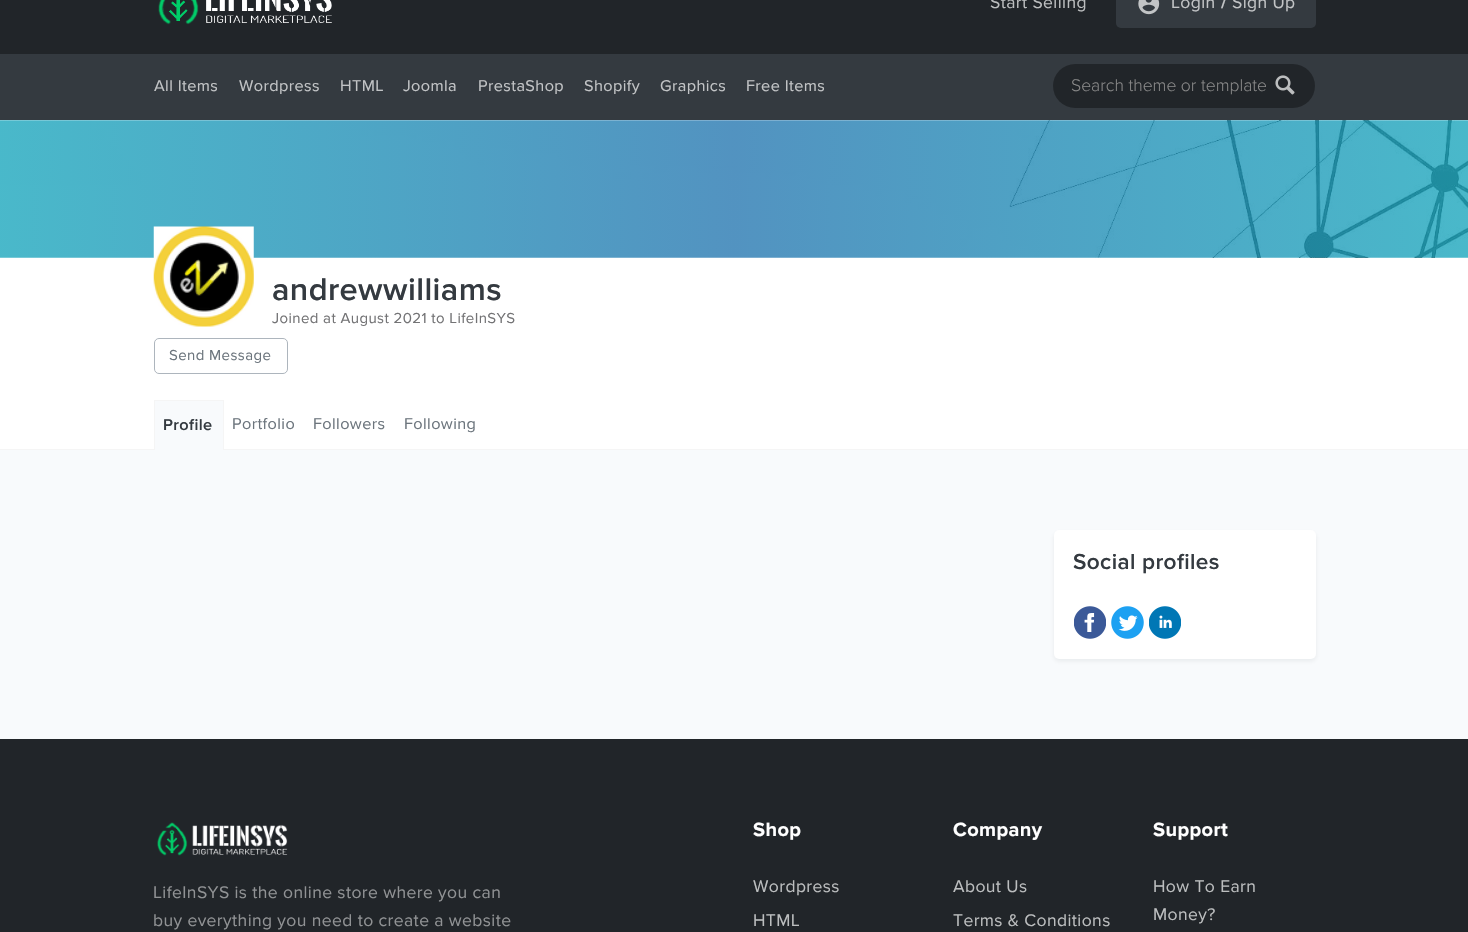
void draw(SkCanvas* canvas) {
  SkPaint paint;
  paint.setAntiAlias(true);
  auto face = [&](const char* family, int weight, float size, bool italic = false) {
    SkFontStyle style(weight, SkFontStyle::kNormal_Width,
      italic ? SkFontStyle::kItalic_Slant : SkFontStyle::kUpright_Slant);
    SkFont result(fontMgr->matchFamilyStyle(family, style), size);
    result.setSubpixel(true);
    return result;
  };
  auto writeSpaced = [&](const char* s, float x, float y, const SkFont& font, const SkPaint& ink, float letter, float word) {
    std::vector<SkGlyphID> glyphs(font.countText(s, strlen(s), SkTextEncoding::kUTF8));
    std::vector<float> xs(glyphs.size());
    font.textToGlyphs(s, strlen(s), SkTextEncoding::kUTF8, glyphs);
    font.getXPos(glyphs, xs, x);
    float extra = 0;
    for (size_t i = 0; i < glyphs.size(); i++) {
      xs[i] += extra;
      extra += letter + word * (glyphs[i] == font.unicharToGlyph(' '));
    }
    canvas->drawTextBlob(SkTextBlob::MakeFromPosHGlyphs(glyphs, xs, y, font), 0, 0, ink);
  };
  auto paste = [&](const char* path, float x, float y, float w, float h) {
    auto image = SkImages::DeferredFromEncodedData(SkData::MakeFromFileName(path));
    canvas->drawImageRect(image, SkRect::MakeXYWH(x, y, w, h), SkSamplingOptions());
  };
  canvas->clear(0xfff8fafc);
  paint.setColor(0xff212529);
  canvas->drawRect(SkRect::MakeXYWH(0, 0, 1468, 54), paint);
  paste("img/1.png", 158, 0, 174, 25);
  paint.setColor(0xff343a40);
  canvas->drawRoundRect(SkRect::MakeXYWH(1116, -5, 200, 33), 5, 5, paint);
  paste("img/2.png", 1138, 0, 22, 15);
  canvas->drawRect(SkRect::MakeXYWH(0, 54, 1468, 66), paint);
  paint.setColor(0xff212529);
  canvas->drawRoundRect(SkRect::MakeXYWH(1053, 64, 262, 44), 22, 22, paint);
  paste("img/3.png", 1275, 75, 20, 20);
  paste("img/4.png", 0, 120, 1468, 138);
  paint.setColor(0xffffffff);
  canvas->drawRect(SkRect::MakeXYWH(0, 258, 1468, 191), paint);
  paint.setColor(0xfff5f5f5);
  canvas->drawRect(SkRect::MakeXYWH(0, 449, 1468, 1), paint);
  paste("img/5.png", 153, 226, 101, 101);
  paint.setStroke(true);
  paint.setStrokeWidth(1);
  paint.setColor(0xffadb5bd);
  canvas->drawRoundRect(SkRect::MakeXYWH(154.5f, 338.5f, 133, 35), 4.5f, 4.5f, paint);
  paint.setStroke(false);
  {
    const struct { float x, y, w, h; SkColor color; } items[] = {
      {155, 401, 68, 49, 0xfff8fafc},
      {154, 400, 70, 1, 0xfff5f5f5},
      {223, 400, 1, 50, 0xfff5f5f5},
      {154, 400, 1, 50, 0xfff5f5f5},
    };
    for (auto [x, y, w, h, color] : items) {
      paint.setColor(color);
      canvas->drawRect(SkRect::MakeXYWH(x, y, w, h), paint);
    }
  }
  paint.setColor(0x12151619);
  paint.setMaskFilter(SkMaskFilter::MakeBlur(kNormal_SkBlurStyle, 2.5f));
  canvas->drawRoundRect(SkRect::MakeXYWH(1054, 533, 262, 128), 5, 5, paint);
  paint.setMaskFilter(nullptr);
  paint.setColor(0xffffffff);
  canvas->drawRoundRect(SkRect::MakeXYWH(1054, 530, 262, 129), 5, 5, paint);
  paste("img/6.png", 1074, 606, 32, 33);
  paste("img/7.png", 1111, 606, 33, 33);
  paste("img/8.png", 1149, 606, 32, 33);
  paint.setColor(0xff212529);
  canvas->drawRect(SkRect::MakeXYWH(0, 739, 1468, 193), paint);
  paste("img/9.png", 157, 822, 131, 34);
  auto f0 = face("Proxima Nova", 400, 17.5f);
  paint.setColor(0xffbcbebf);
  writeSpaced("Start Selling", 990, 8, f0, paint, 0.4f, 0);
  paint.setColor(0xffc2c4c6);
  writeSpaced("Login", 1171, 8, f0, paint, 0.4f, 0);
  auto f1 = face("Proxima Nova", 700, 17.5f);
  writeSpaced("/", 1221, 8, f1, paint, 0.4f, 0);
  writeSpaced("Sign Up", 1232, 8, f0, paint, 0.4f, 0);
  auto f2 = face("Proxima Nova", 400, 16.25f);
  {
    const struct { const char* s; float x, y; } items[] = {
      {"All Items", 154, 91},
      {"Wordpress", 239, 91},
      {"HTML", 340, 91},
      {"Joomla", 403, 91},
      {"PrestaShop", 478, 91},
      {"Shopify", 584, 91},
      {"Graphics", 660, 91},
      {"Free Items", 746, 91},
    };
    for (auto [s, x, y] : items) {
      writeSpaced(s, x, y, f2, paint, 0.4f, 0);
    }
  }
  auto f3 = face("Proxima Nova", 300, 17.5f);
  paint.setColor(0xff888888);
  canvas->drawString("Search theme or template", 1071, 91, f3, paint);
  auto f4 = face("Proxima Nova", 600, 32.5f);
  paint.setColor(0xff343a40);
  writeSpaced("andrewwilliams", 272, 300, f4, paint, 0.4f, 0);
  auto f5 = face("Proxima Nova", 400, 15);
  paint.setColor(0xff737375);
  writeSpaced("Joined at August 2021 to LifeInSYS", 272, 323, f5, paint, 0.4f, 0);
  paint.setColor(0xff6c757d);
  writeSpaced("Send Message", 169, 360, f5, paint, 0.4f, 0);
  auto f6 = face("Proxima Nova", 600, 16.25f);
  paint.setColor(0xff343a40);
  writeSpaced("Profile", 163, 430, f6, paint, 0.4f, 0);
  paint.setColor(0xff6c757d);
  {
    const struct { const char* s; float x, y; } items[] = {
      {"Portfolio", 232, 429},
      {"Followers", 313, 429},
      {"Following", 404, 429},
    };
    for (auto [s, x, y] : items) {
      writeSpaced(s, x, y, f2, paint, 0.4f, 0);
    }
  }
  auto f7 = face("Proxima Nova", 600, 22.5f);
  paint.setColor(0xff343a40);
  writeSpaced("Social profiles", 1073, 569, f7, paint, 0.4f, 0);
  paint.setColor(0xff909294);
  writeSpaced("LifeInSYS is the online store where you can", 153, 898, f0, paint, 0.4f, 0);
  writeSpaced("buy everything you need to create a website", 153, 926, f0, paint, 0.4f, 0);
  auto f8 = face("Proxima Nova", 700, 20);
  paint.setColor(0xffffffff);
  writeSpaced("Shop", 753, 836, f8, paint, 0.4f, 0);
  paint.setColor(0xffbcbebf);
  writeSpaced("Wordpress", 753, 892, f0, paint, 0.4f, 0);
  writeSpaced("HTML", 753, 926, f0, paint, 0.4f, 0);
  paint.setColor(0xffffffff);
  writeSpaced("Company", 953, 836, f8, paint, 0.4f, 0);
  paint.setColor(0xffbcbebf);
  writeSpaced("About Us", 953, 892, f0, paint, 0.4f, 0);
  writeSpaced("Terms & Conditions", 953, 926, f0, paint, 0.4f, 0);
  paint.setColor(0xffffffff);
  writeSpaced("Support", 1153, 836, f8, paint, 0.4f, 0);
  paint.setColor(0xffbcbebf);
  writeSpaced("How To Earn", 1153, 892, f0, paint, 0.4f, 0);
  writeSpaced("Money?", 1153, 920, f0, paint, 0.4f, 0);
}
